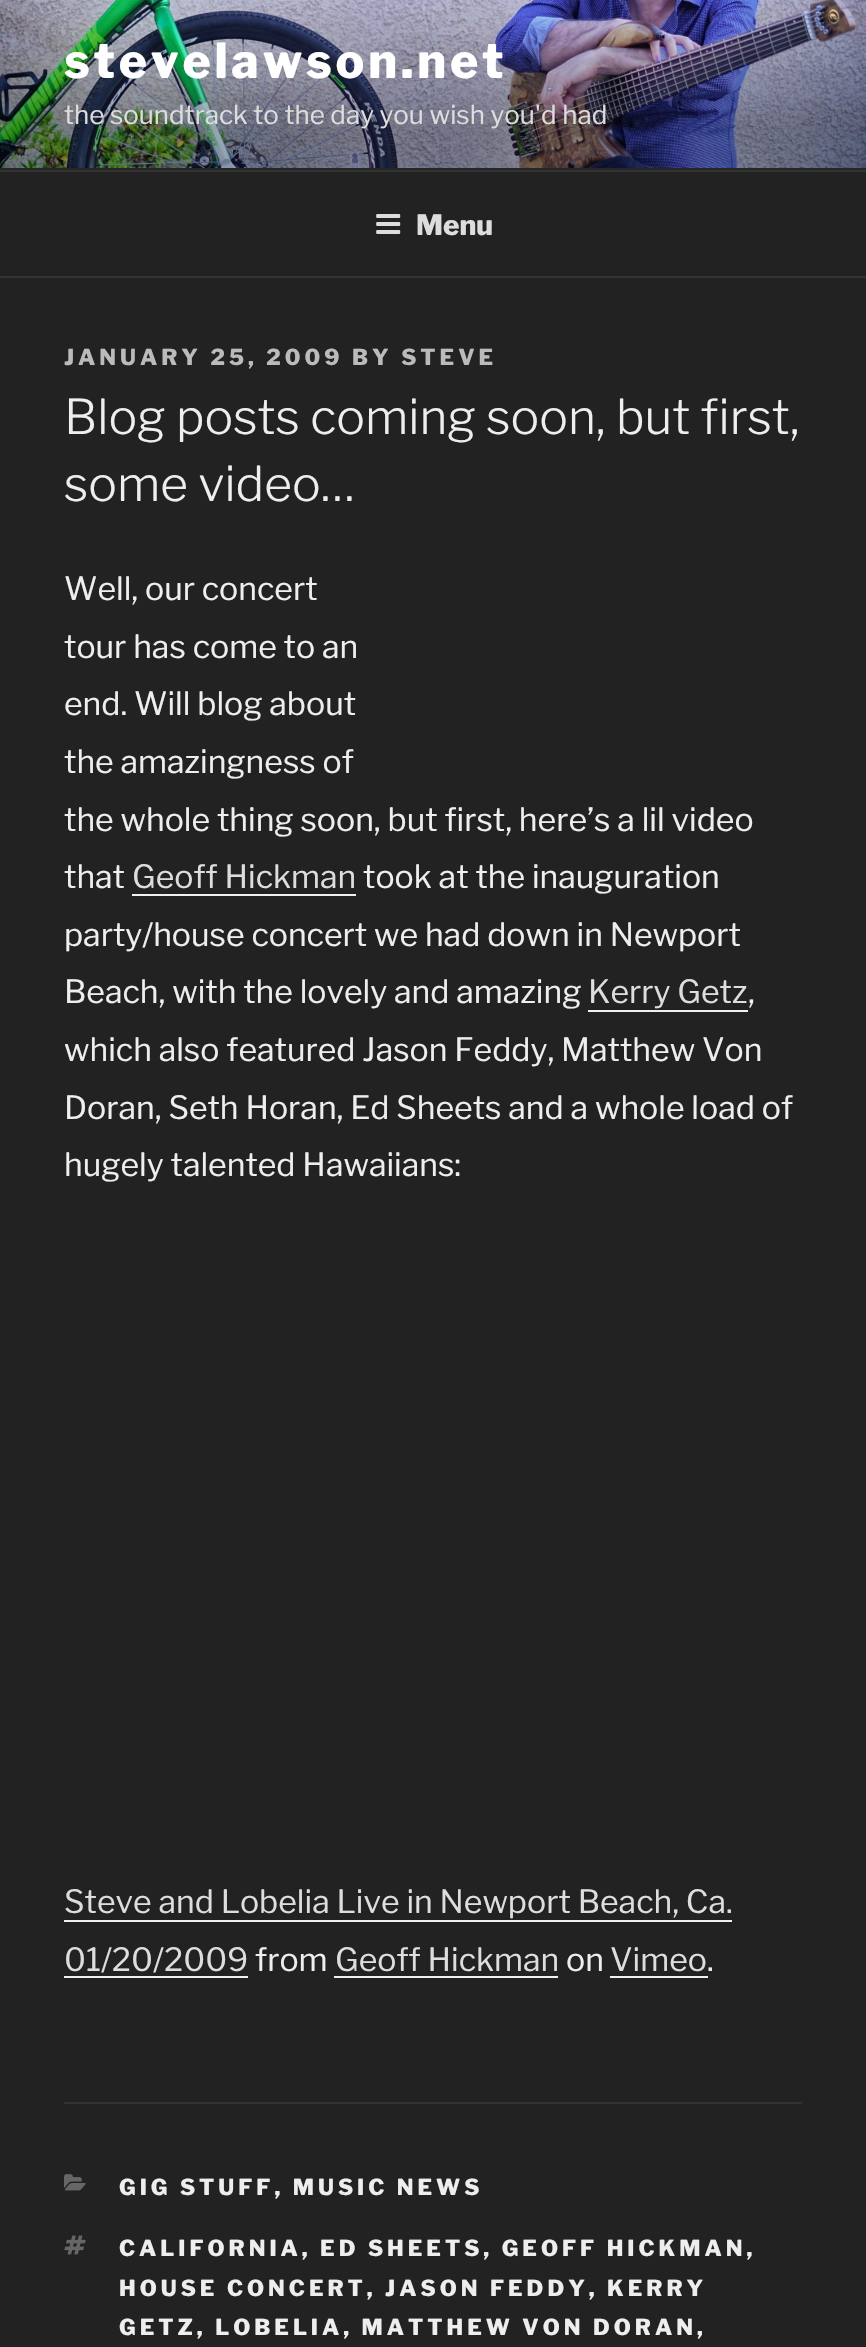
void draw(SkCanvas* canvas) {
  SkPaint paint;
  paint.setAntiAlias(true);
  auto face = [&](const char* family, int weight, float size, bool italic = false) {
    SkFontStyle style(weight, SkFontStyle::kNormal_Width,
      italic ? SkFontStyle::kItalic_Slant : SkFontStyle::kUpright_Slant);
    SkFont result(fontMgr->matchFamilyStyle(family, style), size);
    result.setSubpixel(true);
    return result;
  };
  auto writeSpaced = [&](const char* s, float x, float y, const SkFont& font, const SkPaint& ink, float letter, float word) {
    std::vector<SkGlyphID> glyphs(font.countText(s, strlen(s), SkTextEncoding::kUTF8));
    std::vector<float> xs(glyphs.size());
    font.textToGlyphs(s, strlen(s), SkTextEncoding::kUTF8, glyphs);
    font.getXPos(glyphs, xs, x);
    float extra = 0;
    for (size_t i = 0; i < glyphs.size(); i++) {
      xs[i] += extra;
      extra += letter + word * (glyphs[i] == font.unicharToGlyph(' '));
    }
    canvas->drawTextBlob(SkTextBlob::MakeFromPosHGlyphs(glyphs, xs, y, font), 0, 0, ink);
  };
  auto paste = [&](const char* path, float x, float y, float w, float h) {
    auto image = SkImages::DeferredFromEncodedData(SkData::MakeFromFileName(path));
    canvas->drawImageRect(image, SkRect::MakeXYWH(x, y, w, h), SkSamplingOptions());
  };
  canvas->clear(0xff222222);
  paint.setColor(0xff262626);
  canvas->drawRect(SkRect::MakeXYWH(0, 168, 866, 2), paint);
  paste("img/1.png", 0, 0, 866, 168);
  paint.setColor(0xff333333);
  canvas->drawRect(SkRect::MakeXYWH(0, 170, 866, 2), paint);
  canvas->drawRect(SkRect::MakeXYWH(0, 276, 866, 2), paint);
  paste("img/2.png", 376, 214, 25, 20);
  {
    const struct { float x, y, w, h; SkColor color; } items[] = {
      {132, 894, 224, 2, 0xfff0f0f0},
      {588, 1010, 160, 2, 0xfff0f0f0},
      {64, 1920, 668, 2, 0xfff0f0f0},
      {64, 1976, 184, 2, 0xfff0f0f0},
      {334, 1976, 224, 2, 0xfff0f0f0},
      {610, 1976, 98, 2, 0xfff0f0f0},
      {64, 2102, 738, 2, 0xff333333},
    };
    for (auto [x, y, w, h, color] : items) {
      paint.setColor(color);
      canvas->drawRect(SkRect::MakeXYWH(x, y, w, h), paint);
    }
  }
  paste("img/3.png", 64, 2174, 22, 17);
  paste("img/4.png", 64, 2235, 22, 20);
  auto f0 = face("Libre Franklin", 100, 48);
  paint.setColor(0xffffffff);
  writeSpaced("stevelawson.net", 64, 78, f0, paint, 3.8f, 0);
  auto f1 = face("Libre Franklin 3", 100, 26);
  paint.setColor(0xffdddddd);
  canvas->drawString("the soundtrack to the day you wish you'd had", 64, 124, f1, paint);
  auto f2 = face("Libre Franklin", 100, 28);
  canvas->drawString("Menu", 416, 235, f2, paint);
  auto f3 = face("Libre Franklin", 100, 22);
  paint.setColor(0xffbbbbbb);
  writeSpaced("JANUARY 25, 2009 BY STEVE", 64, 365, f3, paint, 4, 0);
  auto f4 = face("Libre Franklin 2", 100, 48);
  paint.setColor(0xffeeeeee);
  canvas->drawString("Blog posts coming soon, but first,", 64, 434, f4, paint);
  canvas->drawString("some video…", 64, 501, f4, paint);
  auto f5 = face("Libre Franklin 3", 100, 32);
  {
    const struct { const char* s; float x, y; } items[] = {
      {"Well, our concert", 64, 600},
      {"tour has come to an", 64, 658},
      {"end. Will blog about", 64, 715},
      {"the amazingness of", 64, 773},
      {"the whole thing soon, but first, here’s a lil video", 64, 831},
      {"that", 64, 888},
    };
    for (auto [s, x, y] : items) {
      canvas->drawString(s, x, y, f5, paint);
    }
  }
  paint.setColor(0xffdddddd);
  canvas->drawString("Geoff Hickman", 132, 888, f5, paint);
  paint.setColor(0xffeeeeee);
  {
    const struct { const char* s; float x, y; } items[] = {
      {"took at the inauguration", 363, 888},
      {"party/house concert we had down in Newport", 64, 946},
      {"Beach, with the lovely and amazing", 64, 1003},
    };
    for (auto [s, x, y] : items) {
      canvas->drawString(s, x, y, f5, paint);
    }
  }
  paint.setColor(0xffdddddd);
  canvas->drawString("Kerry Getz", 588, 1003, f5, paint);
  paint.setColor(0xffeeeeee);
  {
    const struct { const char* s; float x, y; } items[] = {
      {",", 748, 1003},
      {"which also featured Jason Feddy, Matthew Von", 64, 1061},
      {"Doran, Seth Horan, Ed Sheets and a whole load of", 64, 1119},
      {"hugely talented Hawaiians:", 64, 1176},
    };
    for (auto [s, x, y] : items) {
      canvas->drawString(s, x, y, f5, paint);
    }
  }
  paint.setColor(0xffdddddd);
  canvas->drawString("Steve and Lobelia Live in Newport Beach, Ca.", 64, 1913, f5, paint);
  canvas->drawString("01/20/2009", 64, 1971, f5, paint);
  paint.setColor(0xffeeeeee);
  canvas->drawString("from", 255, 1971, f5, paint);
  paint.setColor(0xffdddddd);
  canvas->drawString("Geoff Hickman", 335, 1971, f5, paint);
  paint.setColor(0xffeeeeee);
  canvas->drawString("on", 566, 1971, f5, paint);
  paint.setColor(0xffdddddd);
  canvas->drawString("Vimeo", 610, 1971, f5, paint);
  paint.setColor(0xffeeeeee);
  canvas->drawString(".", 707, 1971, f5, paint);
  {
    const struct { const char* s; float x, y; } items[] = {
      {"GIG STUFF, MUSIC NEWS", 119, 2195},
      {"CALIFORNIA, ED SHEETS, GEOFF HICKMAN,", 119, 2256},
      {"HOUSE CONCERT, JASON FEDDY, KERRY", 119, 2296},
      {"GETZ, LOBELIA, MATTHEW VON DORAN,", 119, 2335},
    };
    for (auto [s, x, y] : items) {
      writeSpaced(s, x, y, f3, paint, 4, 0);
    }
  }
}
